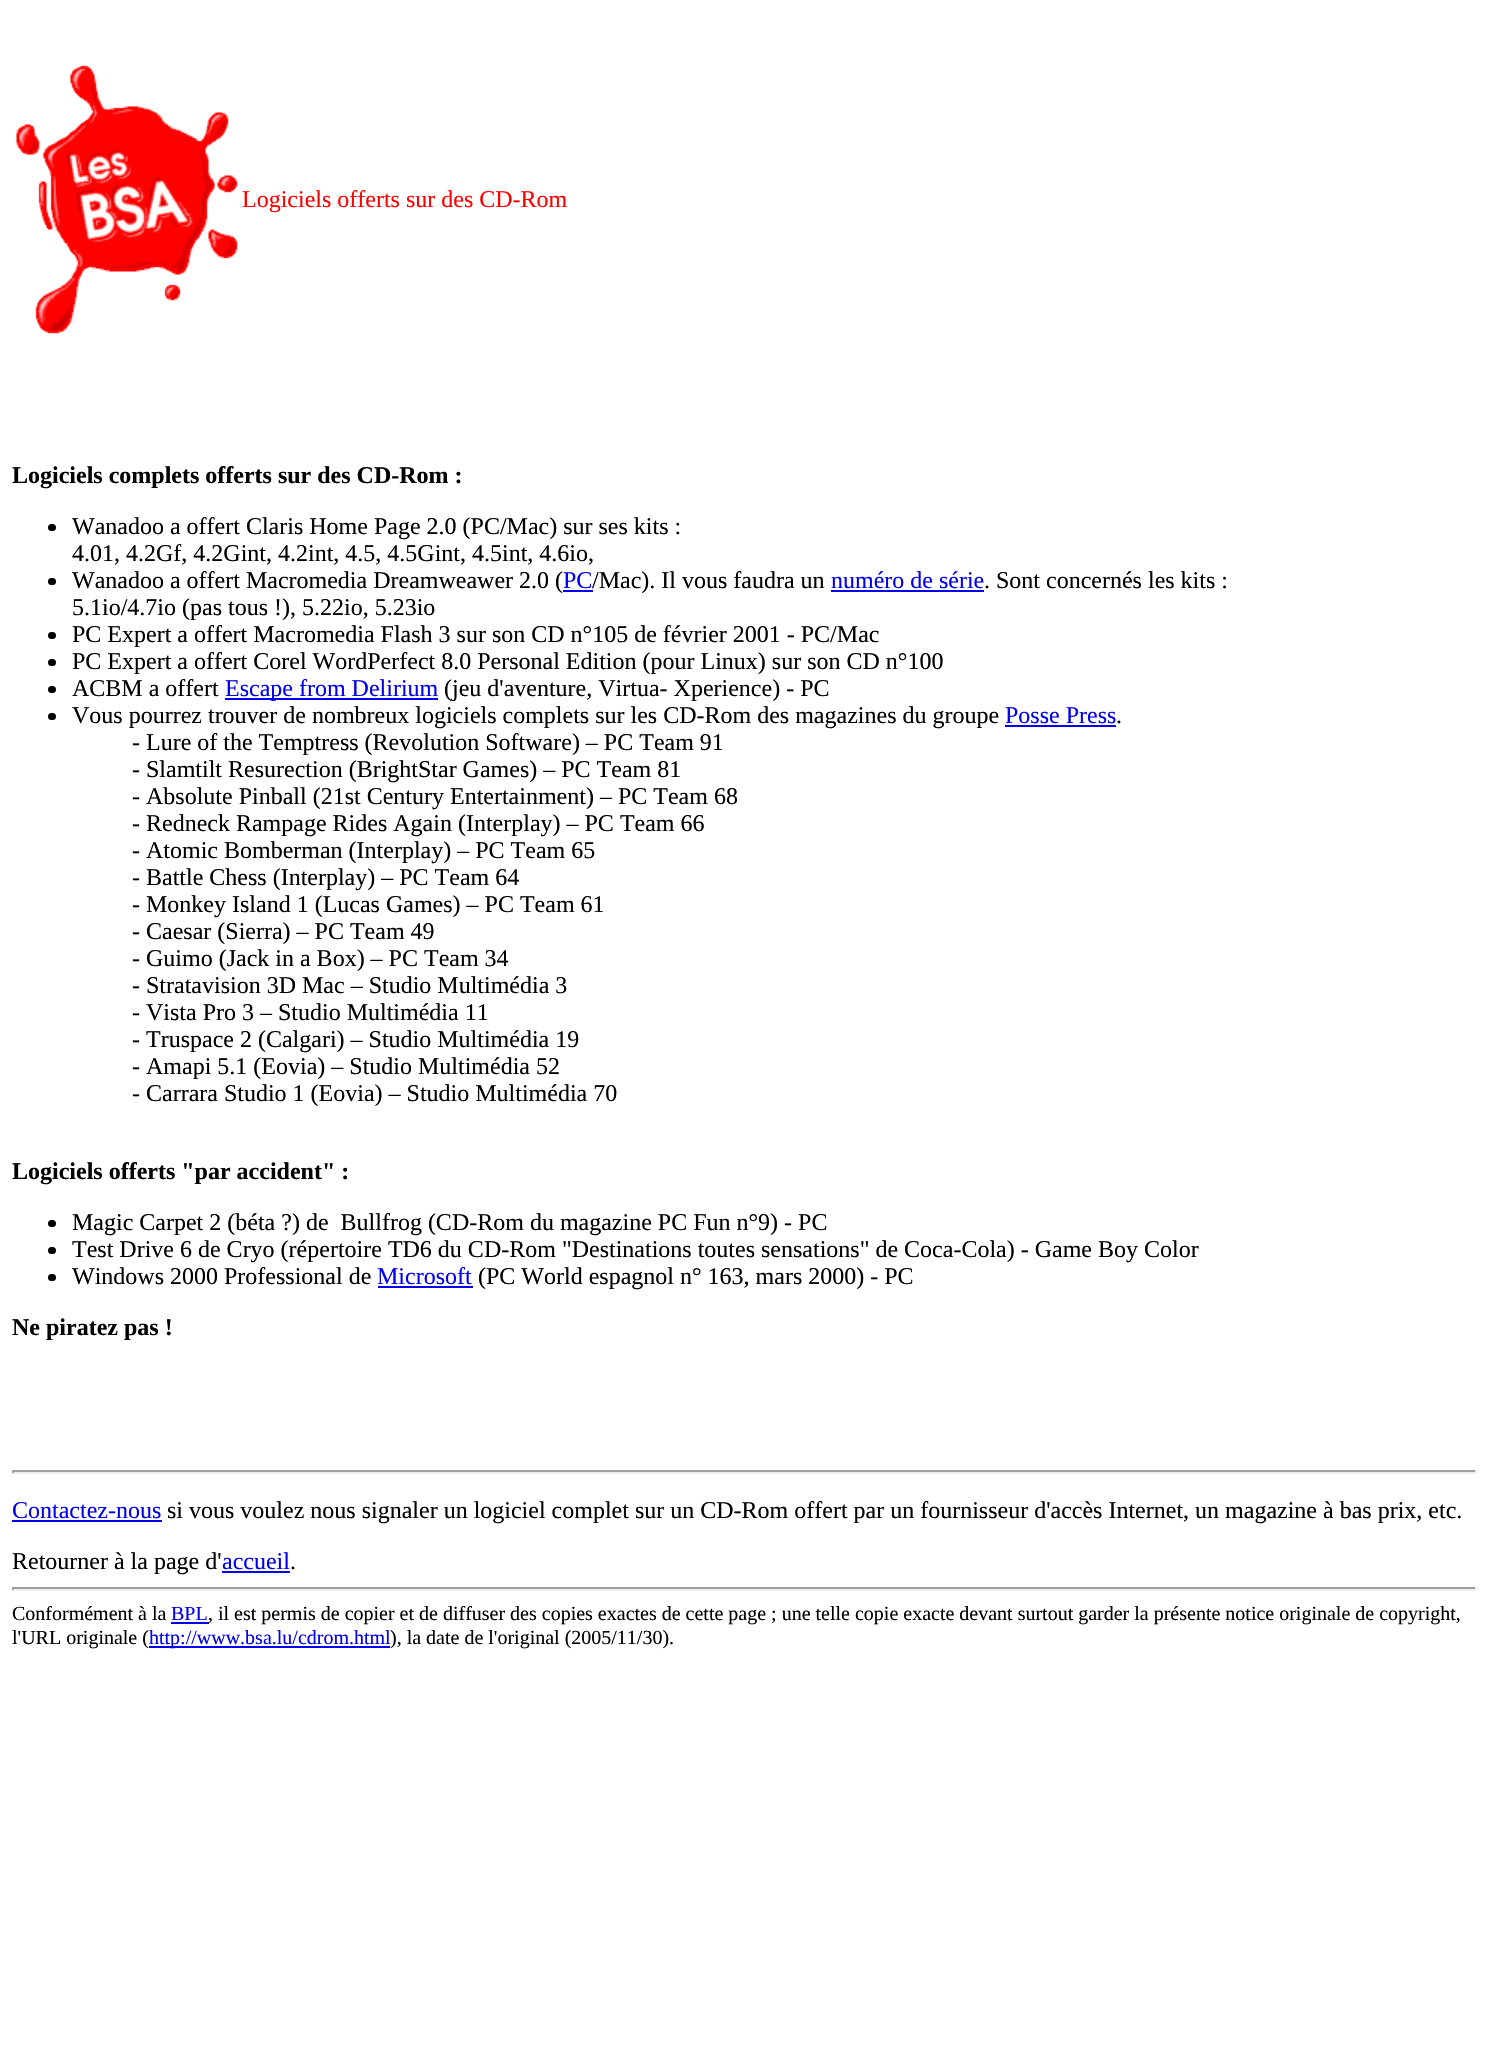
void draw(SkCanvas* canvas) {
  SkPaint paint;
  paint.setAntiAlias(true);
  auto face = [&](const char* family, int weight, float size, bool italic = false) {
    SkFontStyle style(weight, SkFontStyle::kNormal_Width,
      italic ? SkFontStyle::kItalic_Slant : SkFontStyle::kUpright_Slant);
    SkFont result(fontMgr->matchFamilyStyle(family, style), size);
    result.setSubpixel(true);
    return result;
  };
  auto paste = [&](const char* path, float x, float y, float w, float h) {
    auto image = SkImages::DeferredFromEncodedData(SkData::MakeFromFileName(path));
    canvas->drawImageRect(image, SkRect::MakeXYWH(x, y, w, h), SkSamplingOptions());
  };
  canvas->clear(0xffffffff);
  paste("img/1.png", 16, 65, 222, 269);
  paint.setColor(0xff000000);
  canvas->drawRoundRect(SkRect::MakeXYWH(48, 524, 8, 7), 3.5f, 3.5f, paint);
  canvas->drawRoundRect(SkRect::MakeXYWH(48, 578, 8, 7), 3.5f, 3.5f, paint);
  paint.setColor(0xff0000ee);
  canvas->drawRect(SkRect::MakeXYWH(563, 590, 30, 2), paint);
  canvas->drawRect(SkRect::MakeXYWH(831, 590, 153, 2), paint);
  paint.setColor(0xff000000);
  canvas->drawRoundRect(SkRect::MakeXYWH(48, 632, 8, 7), 3.5f, 3.5f, paint);
  canvas->drawRoundRect(SkRect::MakeXYWH(48, 659, 8, 7), 3.5f, 3.5f, paint);
  canvas->drawRoundRect(SkRect::MakeXYWH(48, 686, 8, 7), 3.5f, 3.5f, paint);
  paint.setColor(0xff0000ee);
  canvas->drawRect(SkRect::MakeXYWH(225, 698, 213, 2), paint);
  paint.setColor(0xff000000);
  canvas->drawRoundRect(SkRect::MakeXYWH(48, 713, 8, 7), 3.5f, 3.5f, paint);
  paint.setColor(0xff0000ee);
  canvas->drawRect(SkRect::MakeXYWH(1005, 725, 111, 2), paint);
  paint.setColor(0xff000000);
  canvas->drawRoundRect(SkRect::MakeXYWH(48, 1220, 8, 7), 3.5f, 3.5f, paint);
  canvas->drawRoundRect(SkRect::MakeXYWH(48, 1247, 8, 7), 3.5f, 3.5f, paint);
  canvas->drawRoundRect(SkRect::MakeXYWH(48, 1274, 8, 7), 3.5f, 3.5f, paint);
  {
    const struct { float x, y, w, h; SkColor color; } items[] = {
      {378, 1286, 95, 2, 0xff0000ee},
      {12, 1470, 1464, 2, 0xff9f9f9f},
      {1475, 1470, 2, 3, 0xffeeeeee},
      {12, 1472, 1464, 2, 0xffeeeeee},
      {12, 1470, 2, 3, 0xff9f9f9f},
      {12, 1520, 150, 2, 0xff0000ee},
      {222, 1571, 68, 2, 0xff0000ee},
      {12, 1587, 1464, 2, 0xff9f9f9f},
      {1475, 1587, 2, 3, 0xffeeeeee},
      {12, 1589, 1464, 2, 0xffeeeeee},
      {12, 1587, 2, 3, 0xff9f9f9f},
      {171, 1622, 38, 2, 0xff0000ee},
      {149, 1646, 241, 2, 0xff0000ee},
    };
    for (auto [x, y, w, h, color] : items) {
      paint.setColor(color);
      canvas->drawRect(SkRect::MakeXYWH(x, y, w, h), paint);
    }
  }
  auto f0 = face("Liberation Serif", 400, 24);
  paint.setColor(0xffff0000);
  canvas->drawString("Logiciels offerts sur des CD-Rom", 242, 207, f0, paint);
  auto f1 = face("Liberation Serif", 700, 24);
  paint.setColor(0xff000000);
  canvas->drawString("Logiciels complets offerts sur des CD-Rom :", 12, 483, f1, paint);
  {
    const struct { const char* s; float x, y; } items[] = {
      {"Wanadoo a offert Claris Home Page 2.0 (PC/Mac) sur ses kits :", 72, 534},
      {"4.01, 4.2Gf, 4.2Gint, 4.2int, 4.5, 4.5Gint, 4.5int, 4.6io,", 72, 561},
      {"Wanadoo a offert Macromedia Dreamweawer 2.0 (", 72, 588},
    };
    for (auto [s, x, y] : items) {
      canvas->drawString(s, x, y, f0, paint);
    }
  }
  paint.setColor(0xff0000ee);
  canvas->drawString("PC", 563, 588, f0, paint);
  paint.setColor(0xff000000);
  canvas->drawString("/Mac). Il vous faudra un", 592, 588, f0, paint);
  paint.setColor(0xff0000ee);
  canvas->drawString("numéro de série", 831, 588, f0, paint);
  paint.setColor(0xff000000);
  {
    const struct { const char* s; float x, y; } items[] = {
      {". Sont concernés les kits :", 984, 588},
      {"5.1io/4.7io (pas tous !), 5.22io, 5.23io", 72, 615},
      {"PC Expert a offert Macromedia Flash 3 sur son CD n°105 de février 2001 - PC/Mac", 72, 642},
      {"PC Expert a offert Corel WordPerfect 8.0 Personal Edition (pour Linux) sur son CD n°100", 72, 669},
      {"ACBM a offert", 72, 696},
    };
    for (auto [s, x, y] : items) {
      canvas->drawString(s, x, y, f0, paint);
    }
  }
  paint.setColor(0xff0000ee);
  canvas->drawString("Escape from Delirium", 225, 696, f0, paint);
  paint.setColor(0xff000000);
  canvas->drawString("(jeu d'aventure, Virtua- Xperience) - PC", 444, 696, f0, paint);
  canvas->drawString("Vous pourrez trouver de nombreux logiciels complets sur les CD-Rom des magazines du groupe", 72, 723, f0, paint);
  paint.setColor(0xff0000ee);
  canvas->drawString("Posse Press", 1005, 723, f0, paint);
  paint.setColor(0xff000000);
  {
    const struct { const char* s; float x, y; } items[] = {
      {".", 1116, 723},
      {"- Lure of the Temptress (Revolution Software) – PC Team 91", 132, 750},
      {"- Slamtilt Resurection (BrightStar Games) – PC Team 81", 132, 777},
      {"- Absolute Pinball (21st Century Entertainment) – PC Team 68", 132, 804},
      {"- Redneck Rampage Rides Again (Interplay) – PC Team 66", 132, 831},
      {"- Atomic Bomberman (Interplay) – PC Team 65", 132, 858},
      {"- Battle Chess (Interplay) – PC Team 64", 132, 885},
      {"- Monkey Island 1 (Lucas Games) – PC Team 61", 132, 912},
      {"- Caesar (Sierra) – PC Team 49", 132, 939},
      {"- Guimo (Jack in a Box) – PC Team 34", 132, 966},
      {"- Stratavision 3D Mac – Studio Multimédia 3", 132, 993},
      {"- Vista Pro 3 – Studio Multimédia 11", 132, 1020},
      {"- Truspace 2 (Calgari) – Studio Multimédia 19", 132, 1047},
      {"- Amapi 5.1 (Eovia) – Studio Multimédia 52", 132, 1074},
      {"- Carrara Studio 1 (Eovia) – Studio Multimédia 70", 132, 1101},
    };
    for (auto [s, x, y] : items) {
      canvas->drawString(s, x, y, f0, paint);
    }
  }
  canvas->drawString("Logiciels offerts \"par accident\" :", 12, 1179, f1, paint);
  {
    const struct { const char* s; float x, y; } items[] = {
      {"Magic Carpet 2 (béta ?) de  Bullfrog (CD-Rom du magazine PC Fun n°9) - PC", 72, 1230},
      {"Test Drive 6 de Cryo (répertoire TD6 du CD-Rom \"Destinations toutes sensations\" de Coca-Cola) - Game Boy Color", 72, 1257},
      {"Windows 2000 Professional de", 72, 1284},
    };
    for (auto [s, x, y] : items) {
      canvas->drawString(s, x, y, f0, paint);
    }
  }
  paint.setColor(0xff0000ee);
  canvas->drawString("Microsoft", 377, 1284, f0, paint);
  paint.setColor(0xff000000);
  canvas->drawString("(PC World espagnol n° 163, mars 2000) - PC", 478, 1284, f0, paint);
  canvas->drawString("Ne piratez pas !", 12, 1335, f1, paint);
  paint.setColor(0xff0000ee);
  canvas->drawString("Contactez-nous", 12, 1518, f0, paint);
  paint.setColor(0xff000000);
  canvas->drawString("si vous voulez nous signaler un logiciel complet sur un CD-Rom offert par un fournisseur d'accès Internet, un magazine à bas prix, etc.", 167, 1518, f0, paint);
  canvas->drawString("Retourner à la page d'", 12, 1569, f0, paint);
  paint.setColor(0xff0000ee);
  canvas->drawString("accueil", 222, 1569, f0, paint);
  paint.setColor(0xff000000);
  canvas->drawString(".", 290, 1569, f0, paint);
  auto f2 = face("Liberation Serif", 400, 20);
  canvas->drawString("Conformément à la", 12, 1620, f2, paint);
  paint.setColor(0xff0000ee);
  canvas->drawString("BPL", 171, 1620, f2, paint);
  paint.setColor(0xff000000);
  canvas->drawString(", il est permis de copier et de diffuser des copies exactes de cette page ; une telle copie exacte devant surtout garder la présente notice originale de copyright,", 208, 1620, f2, paint);
  canvas->drawString("l'URL originale (", 12, 1644, f2, paint);
  paint.setColor(0xff0000ee);
  canvas->drawString("http://www.bsa.lu/cdrom.html", 149, 1644, f2, paint);
  paint.setColor(0xff000000);
  canvas->drawString("), la date de l'original (2005/11/30).", 390, 1644, f2, paint);
}
